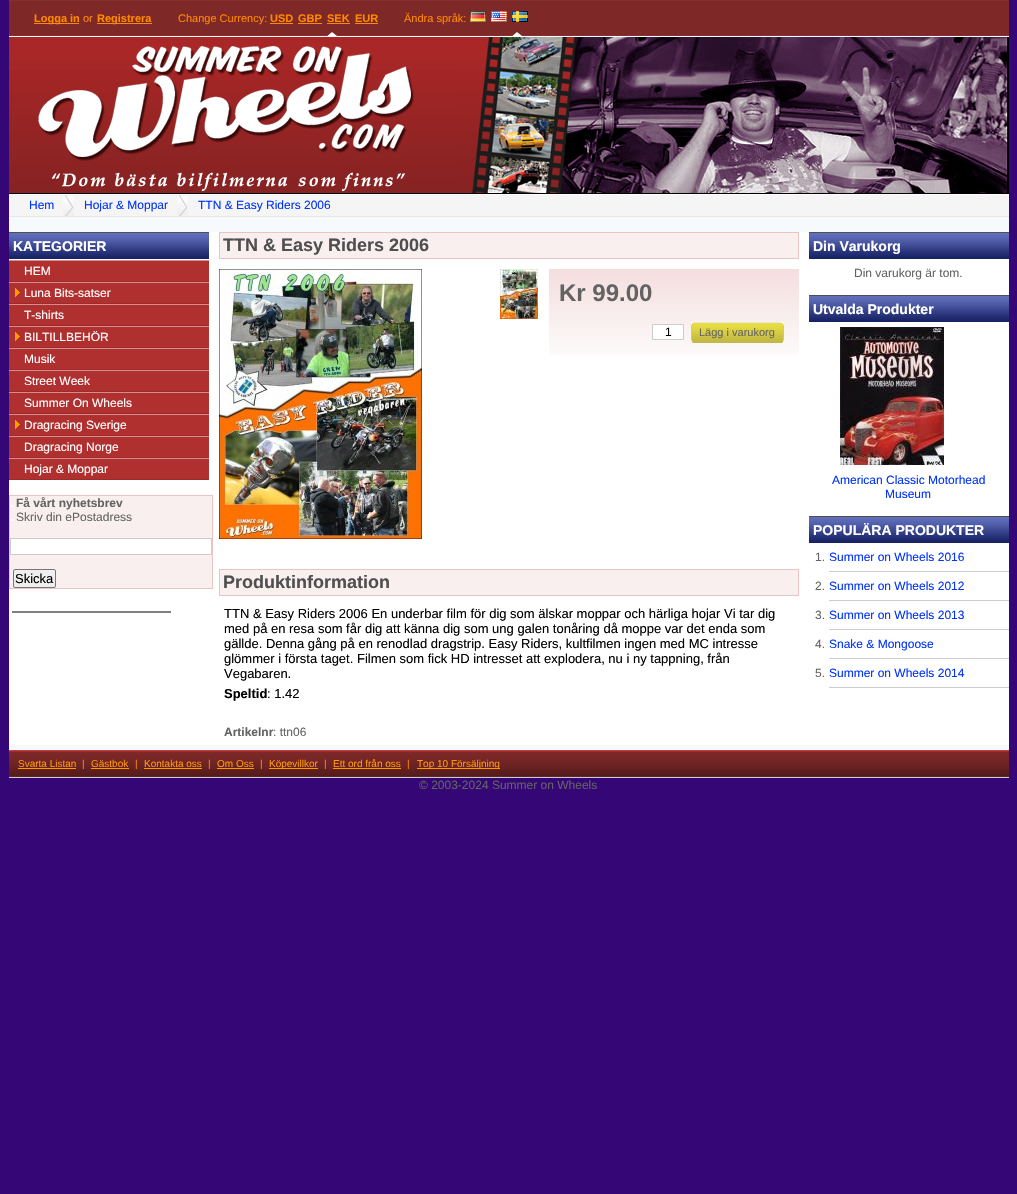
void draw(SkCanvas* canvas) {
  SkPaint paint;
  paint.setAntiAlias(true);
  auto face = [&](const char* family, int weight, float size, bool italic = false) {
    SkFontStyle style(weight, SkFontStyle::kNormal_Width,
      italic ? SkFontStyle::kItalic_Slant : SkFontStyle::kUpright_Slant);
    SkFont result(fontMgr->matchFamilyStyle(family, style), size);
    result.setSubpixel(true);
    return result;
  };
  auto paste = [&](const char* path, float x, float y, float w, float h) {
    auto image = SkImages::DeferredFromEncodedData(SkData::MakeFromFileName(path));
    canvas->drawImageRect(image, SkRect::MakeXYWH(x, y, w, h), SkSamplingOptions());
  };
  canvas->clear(0xff350675);
  paint.setColor(0xfff6fafc);
  canvas->drawRect(SkRect::MakeXYWH(9, 217, 1000, 533), paint);
  paste("img/1.png", 9, 0, 1000, 36);
  {
    const struct { float x, y, w, h; SkColor color; } items[] = {
      {9, 36, 1000, 1, 0xffffffff},
      {34, 23, 45, 1, 0xffff8a00},
      {97, 23, 55, 1, 0xffff8a00},
      {270, 23, 23, 1, 0xffff8a00},
      {298, 23, 24, 1, 0xffff8a00},
    };
    for (auto [x, y, w, h, color] : items) {
      paint.setColor(color);
      canvas->drawRect(SkRect::MakeXYWH(x, y, w, h), paint);
    }
  }
  paste("img/2.png", 327, 32, 10, 4);
  canvas->drawRect(SkRect::MakeXYWH(327, 23, 23, 1), paint);
  canvas->drawRect(SkRect::MakeXYWH(355, 23, 23, 1), paint);
  paste("img/3.png", 470, 11, 16, 11);
  paste("img/4.png", 491, 11, 16, 11);
  paste("img/2.png", 512, 32, 10, 4);
  paste("img/5.png", 512, 11, 16, 11);
  paste("img/6.png", 9, 37, 1000, 157);
  {
    const struct { float x, y, w, h; SkColor color; } items[] = {
      {9, 194, 1000, 1, 0xffffffff},
      {9, 195, 1000, 21, 0xfff5f5f5},
      {9, 216, 1000, 1, 0xffeae6e6},
    };
    for (auto [x, y, w, h, color] : items) {
      paint.setColor(color);
      canvas->drawRect(SkRect::MakeXYWH(x, y, w, h), paint);
    }
  }
  paste("img/7.png", 63, 195, 11, 21);
  paste("img/7.png", 177, 195, 11, 21);
  paint.setColor(0xffffffff);
  canvas->drawRect(SkRect::MakeXYWH(9, 232, 1000, 513), paint);
  paste("img/8.png", 9, 233, 200, 26);
  {
    const struct { float x, y, w, h; SkColor color; } items[] = {
      {9, 232, 200, 1, 0xff4f4f4f},
      {9, 261, 200, 20, 0xffb03030},
      {9, 260, 200, 1, 0xffd48d8d},
      {9, 281, 200, 1, 0xff9e2b2b},
      {9, 283, 200, 20, 0xffb03030},
    };
    for (auto [x, y, w, h, color] : items) {
      paint.setColor(color);
      canvas->drawRect(SkRect::MakeXYWH(x, y, w, h), paint);
    }
  }
  paste("img/9.png", 15, 288, 5, 9);
  {
    const struct { float x, y, w, h; SkColor color; } items[] = {
      {9, 282, 200, 1, 0xffd48d8d},
      {9, 303, 200, 1, 0xff9e2b2b},
      {9, 305, 200, 20, 0xffb03030},
      {9, 304, 200, 1, 0xffd48d8d},
      {9, 325, 200, 1, 0xff9e2b2b},
      {9, 327, 200, 20, 0xffb03030},
    };
    for (auto [x, y, w, h, color] : items) {
      paint.setColor(color);
      canvas->drawRect(SkRect::MakeXYWH(x, y, w, h), paint);
    }
  }
  paste("img/9.png", 15, 332, 5, 9);
  {
    const struct { float x, y, w, h; SkColor color; } items[] = {
      {9, 326, 200, 1, 0xffd48d8d},
      {9, 347, 200, 1, 0xff9e2b2b},
      {9, 349, 200, 20, 0xffb03030},
      {9, 348, 200, 1, 0xffd48d8d},
      {9, 369, 200, 1, 0xff9e2b2b},
      {9, 371, 200, 20, 0xffb03030},
      {9, 370, 200, 1, 0xffd48d8d},
      {9, 391, 200, 1, 0xff9e2b2b},
      {9, 393, 200, 20, 0xffb03030},
      {9, 392, 200, 1, 0xffd48d8d},
      {9, 413, 200, 1, 0xff9e2b2b},
      {9, 415, 200, 20, 0xffb03030},
    };
    for (auto [x, y, w, h, color] : items) {
      paint.setColor(color);
      canvas->drawRect(SkRect::MakeXYWH(x, y, w, h), paint);
    }
  }
  paste("img/9.png", 15, 420, 5, 9);
  {
    const struct { float x, y, w, h; SkColor color; } items[] = {
      {9, 414, 200, 1, 0xffd48d8d},
      {9, 435, 200, 1, 0xff9e2b2b},
      {9, 437, 200, 20, 0xffb03030},
      {9, 436, 200, 1, 0xffd48d8d},
      {9, 457, 200, 1, 0xff9e2b2b},
      {9, 459, 200, 20, 0xffb03030},
      {9, 458, 200, 1, 0xffd48d8d},
      {9, 479, 200, 1, 0xff9e2b2b},
      {9, 495, 204, 94, 0xffe8c4c4},
      {10, 496, 202, 92, 0xfffaefef},
      {10, 505, 3, 2, 0xffffffff},
      {10, 519, 3, 2, 0xffffffff},
    };
    for (auto [x, y, w, h, color] : items) {
      paint.setColor(color);
      canvas->drawRect(SkRect::MakeXYWH(x, y, w, h), paint);
    }
  }
  canvas->drawRect(SkRect::MakeXYWH(10.5f, 538.5f, 201, 16), paint);
  paint.setStroke(true);
  paint.setStrokeWidth(1);
  paint.setColor(0xffcdcdcd);
  canvas->drawRect(SkRect::MakeXYWH(10.5f, 538.5f, 201, 16), paint);
  paint.setStroke(false);
  paint.setColor(0xffffffff);
  canvas->drawRect(SkRect::MakeXYWH(10, 581, 3, 2), paint);
  paint.setColor(0xffefefef);
  canvas->drawRoundRect(SkRect::MakeXYWH(13.5f, 569.5f, 42, 18), 1.5f, 1.5f, paint);
  paint.setStroke(true);
  paint.setColor(0xff767676);
  canvas->drawRoundRect(SkRect::MakeXYWH(13.5f, 569.5f, 42, 18), 1.5f, 1.5f, paint);
  paint.setStroke(false);
  paint.setColor(0xff808080);
  canvas->drawRect(SkRect::MakeXYWH(12, 611, 159, 2), paint);
  paint.setColor(0xfffaefef);
  canvas->drawRect(SkRect::MakeXYWH(219.5f, 232.5f, 579, 26), paint);
  paint.setStroke(true);
  paint.setColor(0xffe8c4c4);
  canvas->drawRect(SkRect::MakeXYWH(219.5f, 232.5f, 579, 26), paint);
  paste("img/10.png", 219, 269, 203, 270);
  paste("img/11.png", 500, 269, 38, 50);
  paste("img/12.png", 549, 269, 250, 86);
  paint.setStroke(false);
  paint.setColor(0xffffffff);
  canvas->drawRect(SkRect::MakeXYWH(652.5f, 324.5f, 31, 15), paint);
  paint.setStroke(true);
  paint.setColor(0xffcdcdcd);
  canvas->drawRect(SkRect::MakeXYWH(652.5f, 324.5f, 31, 15), paint);
  paste("img/13.png", 691, 322, 93, 21);
  paint.setStroke(false);
  paint.setColor(0xfffaefef);
  canvas->drawRect(SkRect::MakeXYWH(219.5f, 569.5f, 579, 26), paint);
  paint.setStroke(true);
  paint.setColor(0xffe8c4c4);
  canvas->drawRect(SkRect::MakeXYWH(219.5f, 569.5f, 579, 26), paint);
  paste("img/8.png", 809, 233, 200, 26);
  paint.setStroke(false);
  paint.setColor(0xff4f4f4f);
  canvas->drawRect(SkRect::MakeXYWH(809, 232, 200, 1), paint);
  paste("img/8.png", 809, 296, 200, 26);
  canvas->drawRect(SkRect::MakeXYWH(809, 295, 200, 1), paint);
  paste("img/14.png", 840, 327, 104, 138);
  paste("img/8.png", 809, 517, 200, 26);
  {
    const struct { float x, y, w, h; SkColor color; } items[] = {
      {809, 516, 200, 1, 0xff4f4f4f},
      {829, 571, 180, 1, 0xffcdcdcd},
      {829, 600, 180, 1, 0xffcdcdcd},
      {829, 629, 180, 1, 0xffcdcdcd},
      {829, 658, 180, 1, 0xffcdcdcd},
      {829, 687, 180, 1, 0xffcdcdcd},
      {9, 777, 1000, 1, 0xffcccccc},
    };
    for (auto [x, y, w, h, color] : items) {
      paint.setColor(color);
      canvas->drawRect(SkRect::MakeXYWH(x, y, w, h), paint);
    }
  }
  paste("img/15.png", 9, 750, 1000, 27);
  {
    const struct { float x, y, w, h; SkColor color; } items[] = {
      {18, 768, 58, 1, 0xffff9900},
      {91, 768, 38, 1, 0xffff9900},
      {144, 768, 58, 1, 0xffff9900},
      {217, 768, 37, 1, 0xffff9900},
      {269, 768, 49, 1, 0xffff9900},
      {333, 768, 68, 1, 0xffff9900},
      {417, 768, 83, 1, 0xffff9900},
    };
    for (auto [x, y, w, h, color] : items) {
      paint.setColor(color);
      canvas->drawRect(SkRect::MakeXYWH(x, y, w, h), paint);
    }
  }
  auto f0 = face("Liberation Sans", 700, 11);
  paint.setColor(0xffff8a00);
  canvas->drawString("Logga in", 34, 22, f0, paint);
  auto f1 = face("Liberation Sans", 400, 11);
  canvas->drawString("or", 83, 22, f1, paint);
  canvas->drawString("Registrera", 97, 22, f0, paint);
  canvas->drawString("Change Currency:", 178, 22, f1, paint);
  {
    const struct { const char* s; float x, y; } items[] = {
      {"USD", 270, 22},
      {"GBP", 298, 22},
      {"SEK", 327, 22},
      {"EUR", 355, 22},
    };
    for (auto [s, x, y] : items) {
      canvas->drawString(s, x, y, f0, paint);
    }
  }
  canvas->drawString("Ändra språk:", 404, 22, f1, paint);
  auto f2 = face("Liberation Sans", 400, 12);
  paint.setColor(0xff0033ff);
  {
    const struct { const char* s; float x, y; } items[] = {
      {"Hem", 29, 209},
      {"Hojar & Moppar", 84, 209},
      {"TTN & Easy Riders 2006", 198, 209},
    };
    for (auto [s, x, y] : items) {
      canvas->drawString(s, x, y, f2, paint);
    }
  }
  auto f3 = face("Liberation Sans", 700, 14);
  paint.setColor(0xffffffff);
  canvas->drawString("KATEGORIER", 13, 251, f3, paint);
  {
    const struct { const char* s; float x, y; } items[] = {
      {"HEM", 24, 275},
      {"Luna Bits-satser", 24, 297},
      {"T-shirts", 24, 319},
      {"BILTILLBEHÖR", 24, 341},
      {"Musik", 24, 363},
      {"Street Week", 24, 385},
      {"Summer On Wheels", 24, 407},
      {"Dragracing Sverige", 24, 429},
      {"Dragracing Norge", 24, 451},
      {"Hojar & Moppar", 24, 473},
    };
    for (auto [s, x, y] : items) {
      canvas->drawString(s, x, y, f2, paint);
    }
  }
  auto f4 = face("Liberation Sans", 700, 12);
  paint.setColor(0xff636363);
  canvas->drawString("Få vårt nyhetsbrev", 16, 507, f4, paint);
  canvas->drawString("Skriv din ePostadress", 16, 521, f2, paint);
  auto f5 = face("Liberation Sans", 400, 13);
  paint.setColor(0xff000000);
  canvas->drawString("Skicka", 15, 583, f5, paint);
  auto f6 = face("Liberation Sans", 700, 18);
  paint.setColor(0xff4f4f4f);
  canvas->drawString("TTN & Easy Riders 2006", 223, 251, f6, paint);
  auto f7 = face("Liberation Sans", 700, 24);
  paint.setColor(0xff636363);
  canvas->drawString("Kr 99.00", 559, 301, f7, paint);
  paint.setColor(0xff000000);
  canvas->drawString("1", 665, 336, f2, paint);
  paint.setColor(0xff636363);
  canvas->drawString("Lägg i varukorg", 699, 336, f1, paint);
  paint.setColor(0xff4f4f4f);
  canvas->drawString("Produktinformation", 223, 588, f6, paint);
  paint.setColor(0xff000000);
  {
    const struct { const char* s; float x, y; } items[] = {
      {"TTN & Easy Riders 2006 En underbar film för dig som älskar moppar och härliga hojar Vi tar dig", 224, 618},
      {"med på en resa som får dig att känna dig som ung galen tonåring då moppe var det enda som", 224, 633},
      {"gällde. Denna gång på en renodlad dragstrip. Easy Riders, kultfilmen ingen med MC intresse", 224, 648},
      {"glömmer i första taget. Filmen som fick HD intresset att explodera, nu i ny tappning, från", 224, 663},
      {"Vegabaren.", 224, 678},
    };
    for (auto [s, x, y] : items) {
      canvas->drawString(s, x, y, f5, paint);
    }
  }
  auto f8 = face("Liberation Sans", 700, 13);
  canvas->drawString("Speltid", 224, 698, f8, paint);
  canvas->drawString(": 1.42", 267, 698, f5, paint);
  paint.setColor(0xff636363);
  canvas->drawString("Artikelnr", 224, 736, f4, paint);
  canvas->drawString(": ttn06", 273, 736, f2, paint);
  paint.setColor(0xffffffff);
  canvas->drawString("Din Varukorg", 813, 251, f3, paint);
  paint.setColor(0xff636363);
  canvas->drawString("Din varukorg är tom.", 854, 277, f2, paint);
  paint.setColor(0xffffffff);
  canvas->drawString("Utvalda Produkter", 813, 314, f3, paint);
  paint.setColor(0xff0033ff);
  canvas->drawString("American Classic Motorhead", 832, 484, f2, paint);
  canvas->drawString("Museum", 885, 498, f2, paint);
  paint.setColor(0xffffffff);
  canvas->drawString("POPULÄRA PRODUKTER", 813, 535, f3, paint);
  paint.setColor(0xff636363);
  canvas->drawString("1.", 815, 561, f2, paint);
  paint.setColor(0xff0033ff);
  canvas->drawString("Summer on Wheels 2016", 829, 561, f2, paint);
  paint.setColor(0xff636363);
  canvas->drawString("2.", 815, 590, f2, paint);
  paint.setColor(0xff0033ff);
  canvas->drawString("Summer on Wheels 2012", 829, 590, f2, paint);
  paint.setColor(0xff636363);
  canvas->drawString("3.", 815, 619, f2, paint);
  paint.setColor(0xff0033ff);
  canvas->drawString("Summer on Wheels 2013", 829, 619, f2, paint);
  paint.setColor(0xff636363);
  canvas->drawString("4.", 815, 648, f2, paint);
  paint.setColor(0xff0033ff);
  canvas->drawString("Snake & Mongoose", 829, 648, f2, paint);
  paint.setColor(0xff636363);
  canvas->drawString("5.", 815, 677, f2, paint);
  paint.setColor(0xff0033ff);
  canvas->drawString("Summer on Wheels 2014", 829, 677, f2, paint);
  auto f9 = face("Liberation Sans", 400, 10);
  paint.setColor(0xffff9900);
  canvas->drawString("Svarta Listan", 18, 767, f9, paint);
  paint.setColor(0xffff8a00);
  canvas->drawString("|", 82, 767, f9, paint);
  paint.setColor(0xffff9900);
  canvas->drawString("Gästbok", 91, 767, f9, paint);
  paint.setColor(0xffff8a00);
  canvas->drawString("|", 135, 767, f9, paint);
  paint.setColor(0xffff9900);
  canvas->drawString("Kontakta oss", 144, 767, f9, paint);
  paint.setColor(0xffff8a00);
  canvas->drawString("|", 208, 767, f9, paint);
  paint.setColor(0xffff9900);
  canvas->drawString("Om Oss", 217, 767, f9, paint);
  paint.setColor(0xffff8a00);
  canvas->drawString("|", 260, 767, f9, paint);
  paint.setColor(0xffff9900);
  canvas->drawString("Köpevillkor", 269, 767, f9, paint);
  paint.setColor(0xffff8a00);
  canvas->drawString("|", 324, 767, f9, paint);
  paint.setColor(0xffff9900);
  canvas->drawString("Ett ord från oss", 333, 767, f9, paint);
  paint.setColor(0xffff8a00);
  canvas->drawString("|", 407, 767, f9, paint);
  paint.setColor(0xffff9900);
  canvas->drawString("Top 10 Försäljning", 417, 767, f9, paint);
  paint.setColor(0xff636363);
  canvas->drawString("© 2003-2024 Summer on Wheels", 419, 789, f2, paint);
}
